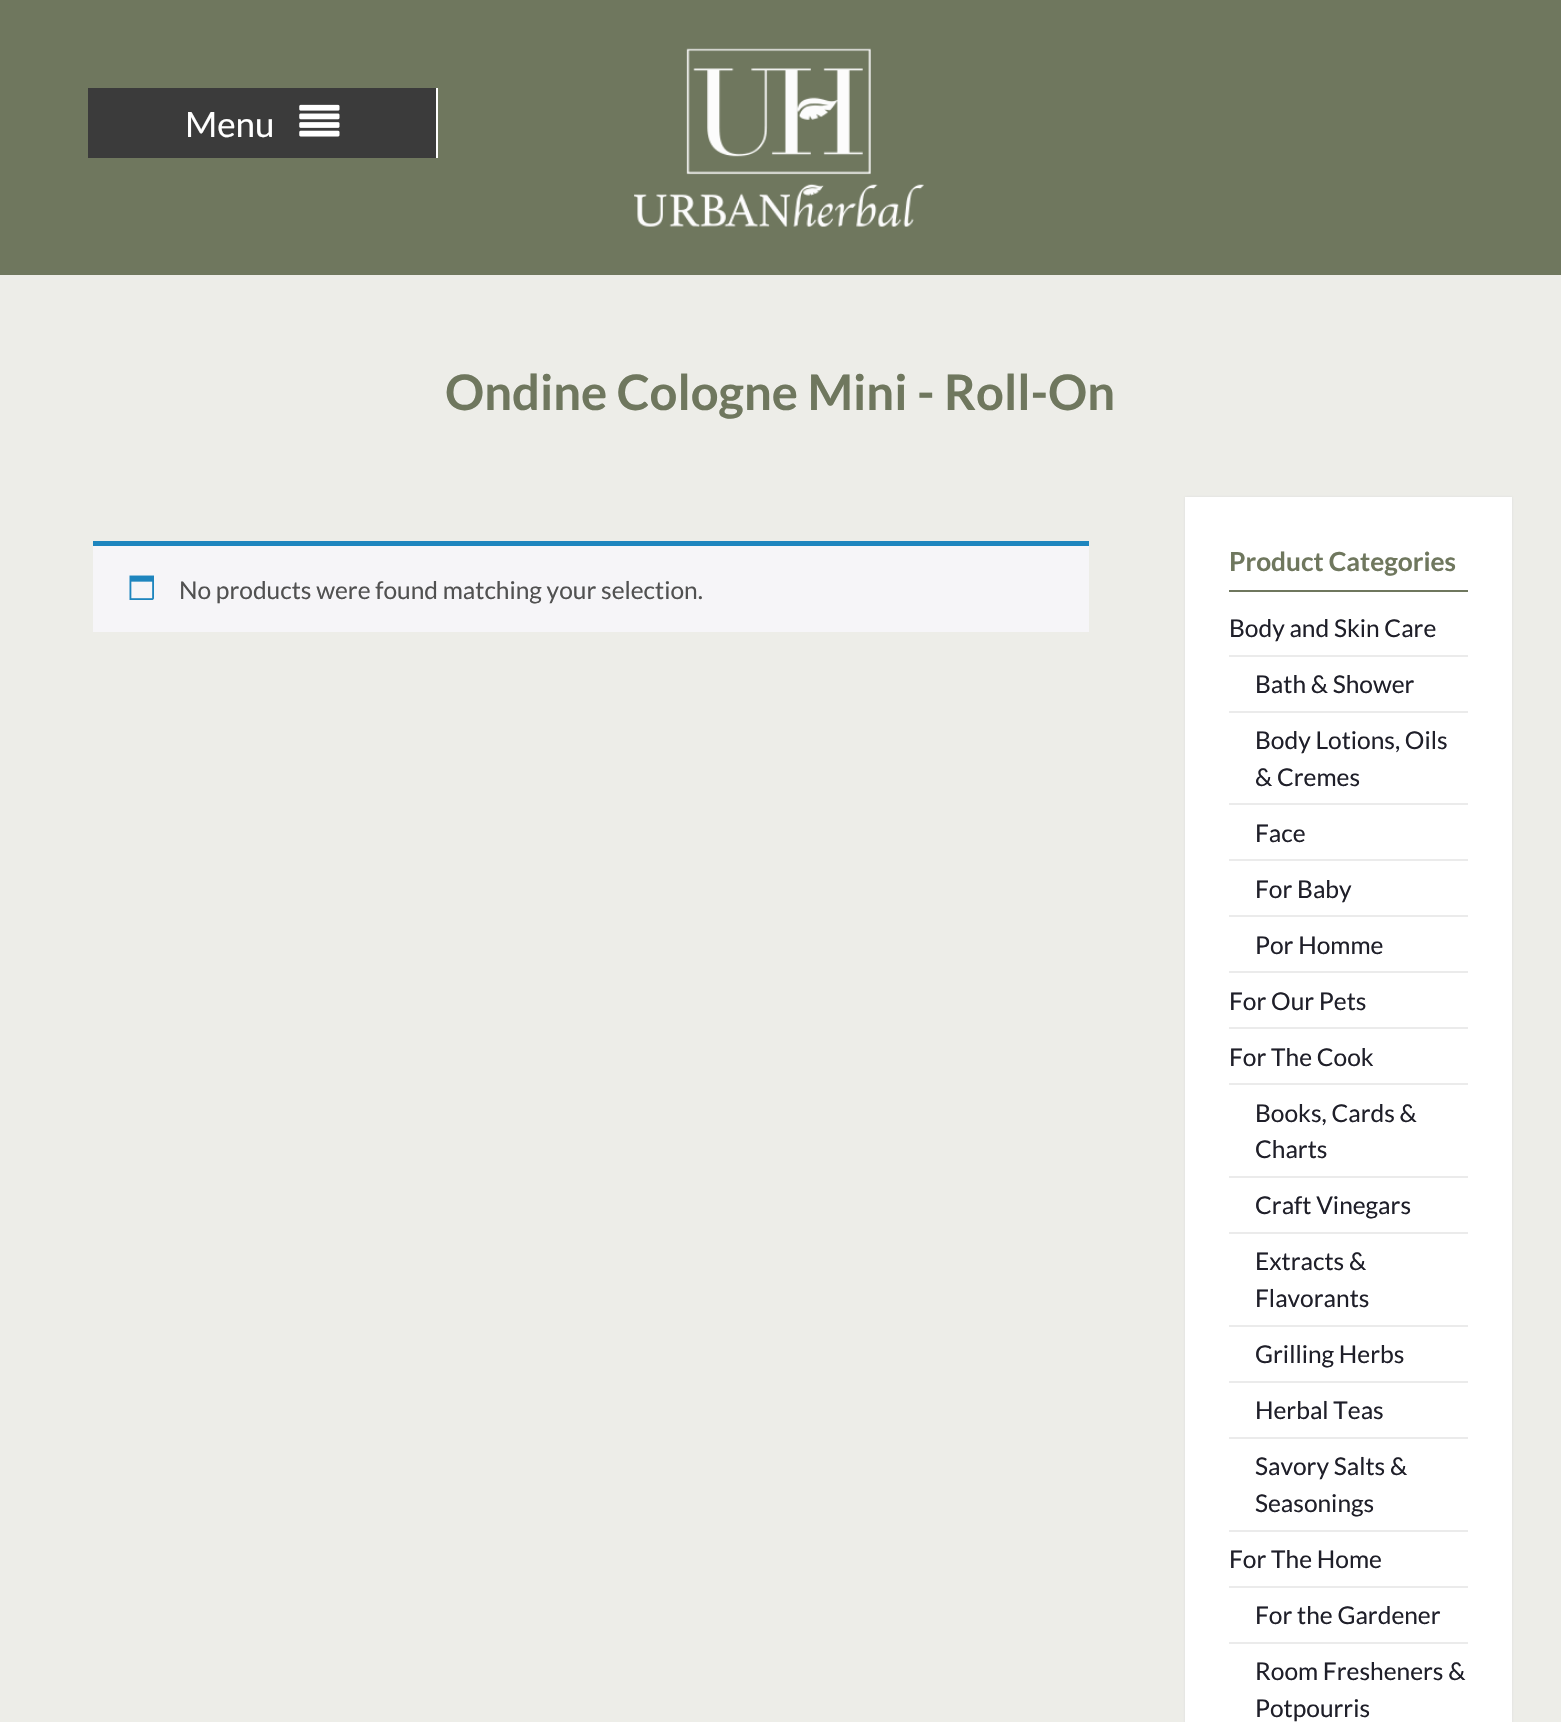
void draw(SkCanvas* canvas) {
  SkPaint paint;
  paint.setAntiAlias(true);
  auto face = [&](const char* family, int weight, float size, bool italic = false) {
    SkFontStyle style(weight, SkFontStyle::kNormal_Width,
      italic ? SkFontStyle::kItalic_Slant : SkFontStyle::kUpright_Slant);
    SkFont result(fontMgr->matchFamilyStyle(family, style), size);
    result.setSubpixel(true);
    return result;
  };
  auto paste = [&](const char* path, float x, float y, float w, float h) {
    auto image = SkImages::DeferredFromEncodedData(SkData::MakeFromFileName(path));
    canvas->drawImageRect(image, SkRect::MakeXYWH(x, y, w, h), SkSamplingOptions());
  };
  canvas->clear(0xffedede8);
  {
    const struct { float x, y, w, h; SkColor color; } items[] = {
      {0, 0, 1561, 275, 0xff6f775e},
      {436, 88, 2, 70, 0xffffffff},
      {88, 88, 348, 70, 0xff3b3b3b},
    };
    for (auto [x, y, w, h, color] : items) {
      paint.setColor(color);
      canvas->drawRect(SkRect::MakeXYWH(x, y, w, h), paint);
    }
  }
  paste("img/1.png", 299, 104, 41, 33);
  paste("img/2.png", 634, 48, 290, 179);
  paint.setColor(0xfff6f5f8);
  canvas->drawRect(SkRect::MakeXYWH(93, 546, 996, 86), paint);
  paint.setColor(0xff1e85be);
  canvas->drawRect(SkRect::MakeXYWH(93, 541, 996, 5), paint);
  paste("img/3.png", 129, 575, 25, 25);
  paint.setColor(0xffdddddd);
  paint.setMaskFilter(SkMaskFilter::MakeBlur(kNormal_SkBlurStyle, 1));
  canvas->drawRect(SkRect::MakeXYWH(1185, 497, 327, 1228), paint);
  paint.setMaskFilter(nullptr);
  {
    const struct { float x, y, w, h; SkColor color; } items[] = {
      {1185, 497, 327, 1225, 0xffffffff},
      {1229, 590, 239, 2, 0xff6f775e},
      {1229, 655, 239, 2, 0xffebebeb},
      {1229, 711, 239, 2, 0xffebebeb},
      {1229, 803, 239, 2, 0xffebebeb},
      {1229, 859, 239, 2, 0xffebebeb},
      {1229, 915, 239, 2, 0xffebebeb},
      {1229, 971, 239, 2, 0xffebebeb},
      {1229, 1027, 239, 2, 0xffebebeb},
      {1229, 1083, 239, 2, 0xffebebeb},
      {1229, 1176, 239, 2, 0xffebebeb},
      {1229, 1232, 239, 2, 0xffebebeb},
      {1229, 1325, 239, 2, 0xffebebeb},
      {1229, 1381, 239, 2, 0xffebebeb},
      {1229, 1437, 239, 2, 0xffebebeb},
      {1229, 1530, 239, 2, 0xffebebeb},
      {1229, 1586, 239, 2, 0xffebebeb},
      {1229, 1642, 239, 2, 0xffebebeb},
    };
    for (auto [x, y, w, h, color] : items) {
      paint.setColor(color);
      canvas->drawRect(SkRect::MakeXYWH(x, y, w, h), paint);
    }
  }
  auto f0 = face("Lato", 400, 35);
  paint.setColor(0xffffffff);
  canvas->drawString("Menu", 185, 137, f0, paint);
  auto f1 = face("Lato", 700, 49);
  paint.setColor(0xff6f775e);
  canvas->drawString("Ondine Cologne Mini - Roll-On", 445, 410, f1, paint);
  auto f2 = face("Lato", 400, 24.5f);
  paint.setColor(0xff515151);
  canvas->drawString("No products were found matching your selection.", 179, 599, f2, paint);
  auto f3 = face("Lato", 700, 26.25f);
  paint.setColor(0xff6f775e);
  canvas->drawString("Product Categories", 1229, 571, f3, paint);
  paint.setColor(0xff1f1f29);
  {
    const struct { const char* s; float x, y; } items[] = {
      {"Body and Skin Care", 1229, 637},
      {"Bath & Shower", 1255, 693},
      {"Body Lotions, Oils", 1255, 749},
      {"& Cremes", 1255, 786},
      {"Face", 1255, 842},
      {"For Baby", 1255, 898},
      {"Por Homme", 1255, 954},
      {"For Our Pets", 1229, 1010},
      {"For The Cook", 1229, 1066},
      {"Books, Cards &", 1255, 1122},
      {"Charts", 1255, 1158},
      {"Craft Vinegars", 1255, 1214},
      {"Extracts &", 1255, 1270},
      {"Flavorants", 1255, 1307},
      {"Grilling Herbs", 1255, 1363},
      {"Herbal Teas", 1255, 1419},
      {"Savory Salts &", 1255, 1475},
      {"Seasonings", 1255, 1512},
      {"For The Home", 1229, 1568},
      {"For the Gardener", 1255, 1624},
      {"Room Fresheners &", 1255, 1680},
      {"Potpourris", 1255, 1717},
    };
    for (auto [s, x, y] : items) {
      canvas->drawString(s, x, y, f2, paint);
    }
  }
}
